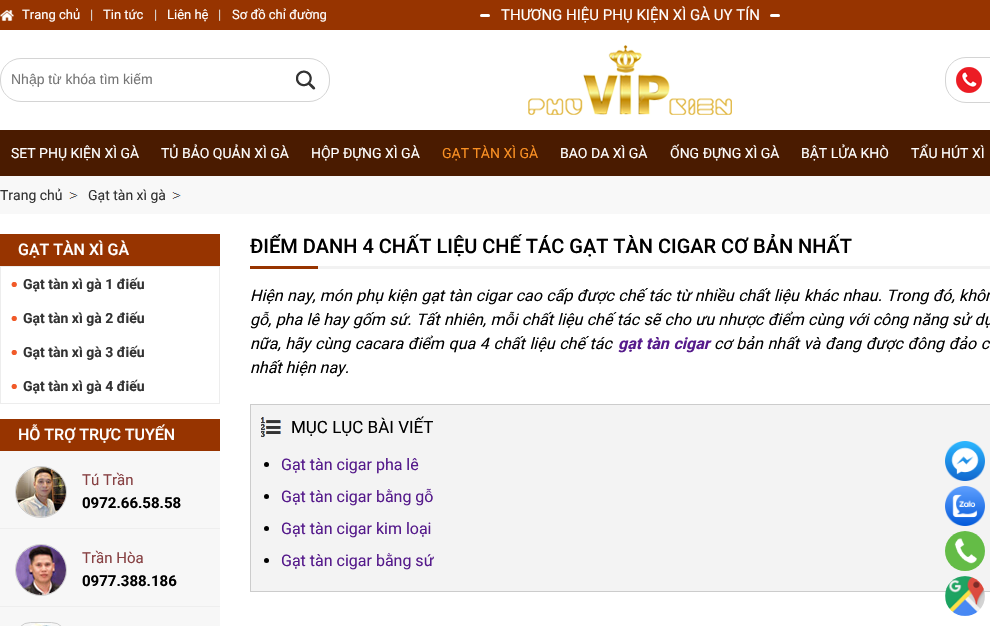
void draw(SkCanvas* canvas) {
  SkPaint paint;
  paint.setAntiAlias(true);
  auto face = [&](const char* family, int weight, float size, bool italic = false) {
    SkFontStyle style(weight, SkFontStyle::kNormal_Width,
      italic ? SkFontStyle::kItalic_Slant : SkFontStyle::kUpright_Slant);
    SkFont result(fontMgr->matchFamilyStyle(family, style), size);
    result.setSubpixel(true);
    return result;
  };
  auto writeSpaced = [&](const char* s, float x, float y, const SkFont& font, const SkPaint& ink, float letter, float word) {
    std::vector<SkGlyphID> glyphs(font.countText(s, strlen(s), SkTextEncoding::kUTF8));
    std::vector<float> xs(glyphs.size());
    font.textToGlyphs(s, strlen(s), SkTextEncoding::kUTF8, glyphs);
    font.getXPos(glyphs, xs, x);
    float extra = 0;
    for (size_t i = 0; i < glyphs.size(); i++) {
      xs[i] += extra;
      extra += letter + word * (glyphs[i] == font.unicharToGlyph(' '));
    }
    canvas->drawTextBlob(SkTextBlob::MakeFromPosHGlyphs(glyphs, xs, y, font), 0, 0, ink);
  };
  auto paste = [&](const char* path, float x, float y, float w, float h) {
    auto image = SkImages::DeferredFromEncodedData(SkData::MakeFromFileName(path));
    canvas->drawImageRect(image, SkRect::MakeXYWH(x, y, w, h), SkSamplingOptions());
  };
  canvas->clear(0xffffffff);
  paint.setColor(0xff973400);
  canvas->drawRect(SkRect::MakeXYWH(0, 0, 990, 30), paint);
  paste("img/1.png", 0, 10, 14, 11);
  paint.setColor(0xffffffff);
  canvas->drawRoundRect(SkRect::MakeXYWH(480, 14, 10, 3), 1.5f, 1.5f, paint);
  canvas->drawRoundRect(SkRect::MakeXYWH(770, 14, 10, 3), 1.5f, 1.5f, paint);
  paste("img/2.png", 528, 45, 204, 70);
  paste("img/3.png", 956, 67, 26, 26);
  paint.setStroke(true);
  paint.setStrokeWidth(1);
  paint.setColor(0xffd4d4d4);
  canvas->drawRoundRect(SkRect::MakeXYWH(945.5f, 57.5f, 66, 45), 20.5f, 20.5f, paint);
  paste("img/4.png", 296, 70, 20, 20);
  canvas->drawRoundRect(SkRect::MakeXYWH(0.5f, 58.5f, 329, 43), 20.5f, 20.5f, paint);
  paint.setStroke(false);
  paint.setColor(0xff973400);
  canvas->drawRect(SkRect::MakeXYWH(0, 234, 220, 32), paint);
  paint.setStroke(true);
  paint.setColor(0xffededed);
  canvas->drawRect(SkRect::MakeXYWH(0.5f, 266.5f, 219, 137), paint);
  paste("img/5.png", 11, 282, 6, 5);
  paste("img/5.png", 11, 316, 6, 5);
  paste("img/5.png", 11, 350, 6, 5);
  paste("img/5.png", 11, 384, 6, 5);
  paint.setStroke(false);
  {
    const struct { float x, y, w, h; SkColor color; } items[] = {
      {0, 451, 220, 175, 0xfff7f7f7},
      {0, 419, 220, 32, 0xff973400},
      {0, 528, 220, 1, 0xffeeeeee},
    };
    for (auto [x, y, w, h, color] : items) {
      paint.setColor(color);
      canvas->drawRect(SkRect::MakeXYWH(x, y, w, h), paint);
    }
  }
  paint.setStroke(true);
  paint.setColor(0xffcccccc);
  canvas->drawCircle(41, 492, 25.5f, paint);
  paste("img/6.png", 16, 467, 50, 50);
  paint.setStroke(false);
  paint.setColor(0xffeeeeee);
  canvas->drawRect(SkRect::MakeXYWH(0, 606, 220, 1), paint);
  paint.setStroke(true);
  paint.setColor(0xffcccccc);
  canvas->drawCircle(41, 570, 25.5f, paint);
  paste("img/7.png", 16, 545, 50, 50);
  canvas->drawRoundRect(SkRect::MakeXYWH(15.5f, 622.5f, 51, 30), 25.5f, 25.5f, paint);
  paste("img/8.png", 30, 623, 22, 3);
  paint.setStroke(false);
  {
    const struct { float x, y, w, h; SkColor color; } items[] = {
      {318, 266, 672, 3, 0xfff2f2f2},
      {250, 266, 68, 3, 0xff973400},
      {251, 405, 739, 186, 0xfff3f3f3},
    };
    for (auto [x, y, w, h, color] : items) {
      paint.setColor(color);
      canvas->drawRect(SkRect::MakeXYWH(x, y, w, h), paint);
    }
  }
  paste("img/9.png", 261, 417, 20, 20);
  {
    const struct { float x, y, w, h; SkColor color; } items[] = {
      {250, 404, 740, 1, 0xffcccccc},
      {250, 404, 1, 45, 0xffcccccc},
      {250, 591, 740, 1, 0xffcccccc},
      {250, 449, 1, 143, 0xffcccccc},
    };
    for (auto [x, y, w, h, color] : items) {
      paint.setColor(color);
      canvas->drawRect(SkRect::MakeXYWH(x, y, w, h), paint);
    }
  }
  paint.setColor(0xff000000);
  canvas->drawCircle(266.5f, 464.5f, 2.5f, paint);
  canvas->drawCircle(266.5f, 496.5f, 2.5f, paint);
  canvas->drawCircle(266.5f, 528.5f, 2.5f, paint);
  canvas->drawCircle(266.5f, 560.5f, 2.5f, paint);
  paint.setColor(0xff4a1b00);
  canvas->drawRect(SkRect::MakeXYWH(0, 130, 990, 46), paint);
  paint.setColor(0xfff8f8f8);
  canvas->drawRect(SkRect::MakeXYWH(0, 176, 990, 38), paint);
  paste("img/10.png", 69, 192, 9, 7);
  paste("img/10.png", 172, 192, 9, 7);
  paste("img/11.png", 945, 441, 40, 40);
  paste("img/12.png", 945, 486, 40, 40);
  paint.setColor(0xff64bc46);
  canvas->drawCircle(965, 551, 20, paint);
  paste("img/13.png", 954, 538, 23, 26);
  paste("img/14.png", 945, 576, 40, 40);
  auto f0 = face("Roboto", 400, 13);
  paint.setColor(0xffffffff);
  canvas->drawString("Trang chủ", 22, 19, f0, paint);
  paint.setColor(0xffdddddd);
  canvas->drawString("|", 90, 19, f0, paint);
  paint.setColor(0xffffffff);
  canvas->drawString("Tin tức", 103, 19, f0, paint);
  paint.setColor(0xffdddddd);
  canvas->drawString("|", 154, 19, f0, paint);
  paint.setColor(0xffffffff);
  canvas->drawString("Liên hệ", 167, 19, f0, paint);
  paint.setColor(0xffdddddd);
  canvas->drawString("|", 218, 19, f0, paint);
  paint.setColor(0xffffffff);
  canvas->drawString("Sơ đồ chỉ đường", 232, 19, f0, paint);
  auto f1 = face("Roboto", 400, 15);
  canvas->drawString("THƯƠNG HIỆU PHỤ KIỆN XÌ GÀ UY TÍN", 501, 20, f1, paint);
  auto f2 = face("Liberation Sans", 400, 14);
  paint.setColor(0xff757575);
  canvas->drawString("Nhập từ khóa tìm kiếm", 11, 84, f2, paint);
  auto f3 = face("Roboto", 500, 16);
  paint.setColor(0xffffffff);
  canvas->drawString("GẠT TÀN XÌ GÀ", 18, 255, f3, paint);
  auto f4 = face("Roboto", 700, 14);
  paint.setColor(0xff333333);
  {
    const struct { const char* s; float x, y; } items[] = {
      {"Gạt tàn xì gà 1 điếu", 23, 289},
      {"Gạt tàn xì gà 2 điếu", 23, 323},
      {"Gạt tàn xì gà 3 điếu", 23, 357},
      {"Gạt tàn xì gà 4 điếu", 23, 391},
    };
    for (auto [s, x, y] : items) {
      canvas->drawString(s, x, y, f4, paint);
    }
  }
  paint.setColor(0xffffffff);
  canvas->drawString("HỖ TRỢ TRỰC TUYẾN", 18, 440, f3, paint);
  paint.setColor(0xff874143);
  canvas->drawString("Tú Trần", 82, 485, f1, paint);
  auto f5 = face("Roboto", 700, 15);
  paint.setColor(0xff000000);
  canvas->drawString("0972.66.58.58", 82, 508, f5, paint);
  paint.setColor(0xff874143);
  canvas->drawString("Trần Hòa", 82, 563, f1, paint);
  paint.setColor(0xff000000);
  canvas->drawString("0977.388.186", 82, 586, f5, paint);
  canvas->save();
  canvas->clipRect(SkRect::MakeXYWH(250, 234, 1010, 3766));
  auto f6 = face("Roboto", 500, 20);
  canvas->drawString("ĐIỂM DANH 4 CHẤT LIỆU CHẾ TÁC GẠT TÀN CIGAR CƠ BẢN NHẤT", 250, 253, f6, paint);
  canvas->restore();
  auto f7 = face("Roboto", 400, 16, true);
  writeSpaced("Hiện nay, món phụ kiện gạt tàn cigar cao cấp được chế tác từ nhiều chất liệu", 250, 301, f7, paint, 0, 0.5f);
  writeSpaced("khác nhau. Trong đó, khôn", 804, 301, f7, paint, 0, 0.5f);
  writeSpaced("gỗ, pha lê hay gốm sứ. Tất", 250, 325, f7, paint, 0, 0.4f);
  writeSpaced("nhiên, mỗi chất liệu chế tác sẽ cho ưu nhược điểm cùng với công năng sử dụ", 444, 325, f7, paint, 0, 0.4f);
  writeSpaced("nữa, hãy cùng cacara điểm qua 4 chất liệu chế tác", 250, 349, f7, paint, 0, 0.75f);
  auto f8 = face("Roboto", 700, 16, true);
  paint.setColor(0xff551a8b);
  writeSpaced("gạt tàn cigar", 618, 349, f8, paint, 0, 0.75f);
  paint.setColor(0xff000000);
  writeSpaced("cơ bản nhất và đang được đông đảo c", 714, 349, f7, paint, 0, 0.75f);
  canvas->drawString("nhất hiện nay.", 250, 373, f7, paint);
  auto f9 = face("Roboto", 400, 17);
  canvas->drawString("MỤC LỤC BÀI VIẾT", 291, 433, f9, paint);
  auto f10 = face("Roboto", 400, 16);
  paint.setColor(0xff551a8b);
  {
    const struct { const char* s; float x, y; } items[] = {
      {"Gạt tàn cigar pha lê", 281, 470},
      {"Gạt tàn cigar bằng gỗ", 281, 502},
      {"Gạt tàn cigar kim loại", 281, 534},
      {"Gạt tàn cigar bằng sứ", 281, 566},
    };
    for (auto [s, x, y] : items) {
      canvas->drawString(s, x, y, f10, paint);
    }
  }
  auto f11 = face("Roboto", 400, 14);
  paint.setColor(0xffffffff);
  {
    const struct { const char* s; float x, y; } items[] = {
      {"SET PHỤ KIỆN XÌ GÀ", 11, 158},
      {"TỦ BẢO QUẢN XÌ GÀ", 161, 158},
      {"HỘP ĐỰNG XÌ GÀ", 311, 158},
    };
    for (auto [s, x, y] : items) {
      canvas->drawString(s, x, y, f11, paint);
    }
  }
  paint.setColor(0xfffa9023);
  canvas->drawString("GẠT TÀN XÌ GÀ", 442, 158, f11, paint);
  paint.setColor(0xffffffff);
  {
    const struct { const char* s; float x, y; } items[] = {
      {"BAO DA XÌ GÀ", 560, 158},
      {"ỐNG ĐỰNG XÌ GÀ", 670, 158},
      {"BẬT LỬA KHÒ", 801, 158},
      {"TẨU HÚT XÌ", 911, 158},
    };
    for (auto [s, x, y] : items) {
      canvas->drawString(s, x, y, f11, paint);
    }
  }
  paint.setColor(0xff333333);
  canvas->drawString("Trang chủ", 0, 200, f11, paint);
  canvas->drawString("Gạt tàn xì gà", 88, 200, f11, paint);
}
